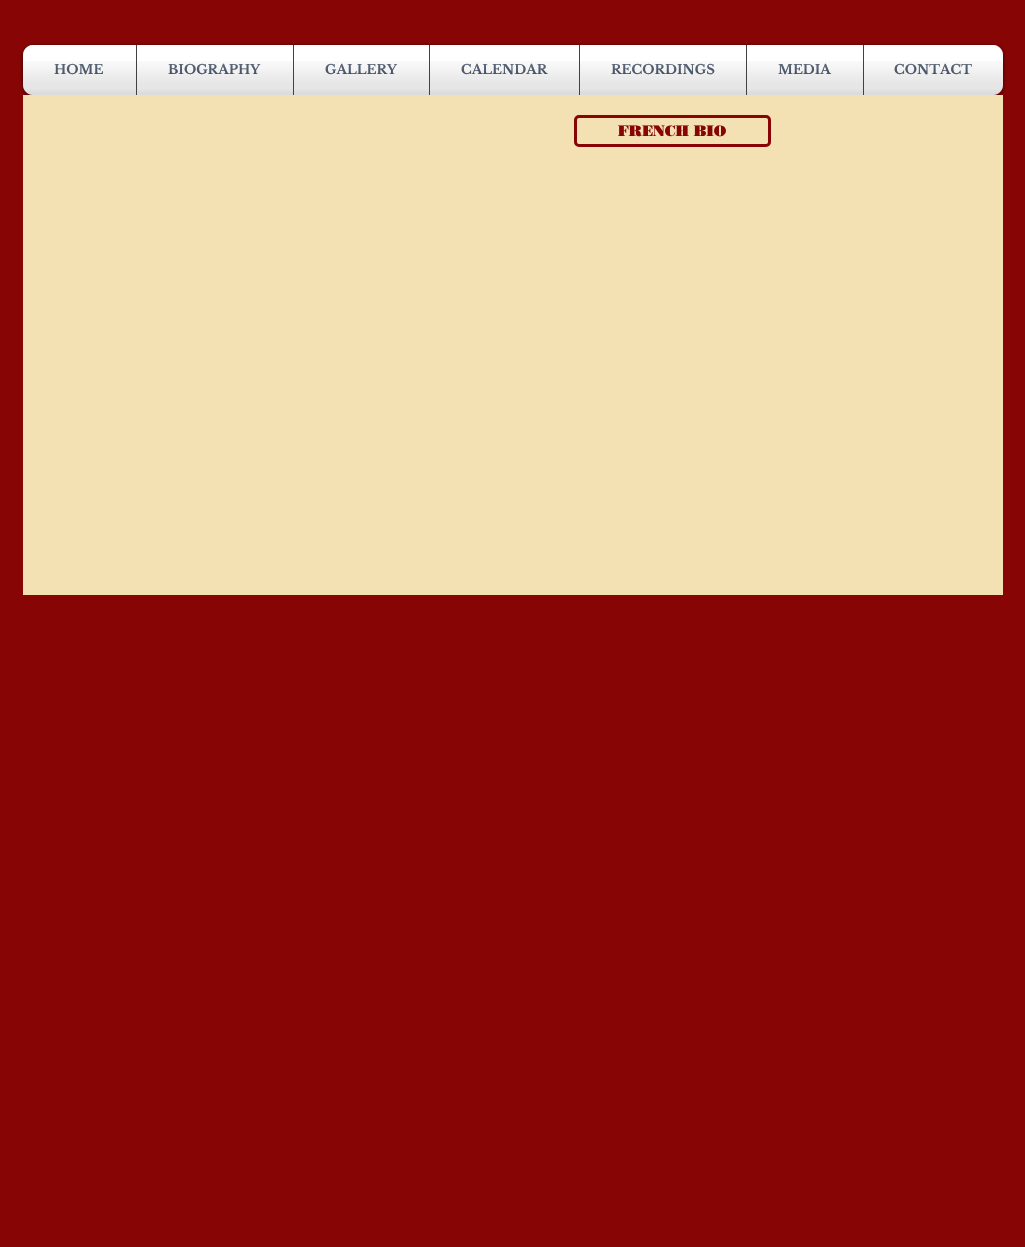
void draw(SkCanvas* canvas) {
  SkPaint paint;
  paint.setAntiAlias(true);
  auto face = [&](const char* family, int weight, float size, bool italic = false) {
    SkFontStyle style(weight, SkFontStyle::kNormal_Width,
      italic ? SkFontStyle::kItalic_Slant : SkFontStyle::kUpright_Slant);
    SkFont result(fontMgr->matchFamilyStyle(family, style), size);
    result.setSubpixel(true);
    return result;
  };
  auto paste = [&](const char* path, float x, float y, float w, float h) {
    auto image = SkImages::DeferredFromEncodedData(SkData::MakeFromFileName(path));
    canvas->drawImageRect(image, SkRect::MakeXYWH(x, y, w, h), SkSamplingOptions());
  };
  auto shape = [&](const char* data, bool evenOdd = false) {
    SkPath result = *SkParsePath::FromSVGString(data);
    if (evenOdd) result.setFillType(SkPathFillType::kEvenOdd);
    return result;
  };
  canvas->clear(0xff880505);
  paint.setColor(0x99000000);
  paint.setMaskFilter(SkMaskFilter::MakeBlur(kNormal_SkBlurStyle, 2));
  canvas->drawRoundRect(SkRect::MakeXYWH(23, 46, 980, 50), 10, 10, paint);
  paint.setMaskFilter(nullptr);
  paste("img/1.png", 23, 45, 980, 9);
  paste("img/2.png", 23, 85, 980, 10);
  paint.setColor(0xffffffff);
  canvas->drawPath(shape("M33 45H136V95H33C27.5 95 23 90.5 23 85V55C23 49.5 27.5 45 33 45Z"), paint);
  {
    const struct { float x, y, w, h; SkColor color; } items[] = {
      {137, 45, 156, 50, 0xffffffff},
      {136, 45, 1, 50, 0xff414141},
      {294, 45, 135, 50, 0xffffffff},
      {293, 45, 1, 50, 0xff414141},
      {430, 45, 149, 50, 0xffffffff},
      {429, 45, 1, 50, 0xff414141},
      {580, 45, 166, 50, 0xffffffff},
      {579, 45, 1, 50, 0xff414141},
      {747, 45, 116, 50, 0xffffffff},
      {746, 45, 1, 50, 0xff414141},
    };
    for (auto [x, y, w, h, color] : items) {
      paint.setColor(color);
      canvas->drawRect(SkRect::MakeXYWH(x, y, w, h), paint);
    }
  }
  paint.setColor(0xffffffff);
  canvas->drawPath(shape("M863 45H993C998.5 45 1003 49.5 1003 55V85C1003 90.5 998.5 95 993 95H863Z"), paint);
  paint.setColor(0xff414141);
  canvas->drawRect(SkRect::MakeXYWH(863, 45, 1, 50), paint);
  paint.setColor(0xfff3e0b3);
  canvas->drawRect(SkRect::MakeXYWH(23, 95, 980, 500), paint);
  paint.setStroke(true);
  paint.setStrokeWidth(3);
  paint.setColor(0xff880505);
  canvas->drawRoundRect(SkRect::MakeXYWH(575.5f, 116.5f, 194, 29), 3.5f, 3.5f, paint);
  auto f0 = face("Libre Baskerville", 700, 13);
  paint.setStroke(false);
  paint.setColor(0xff324158);
  canvas->drawString("HOME", 54, 74, f0, paint);
  paste("img/3.png", 29, 45, 75, 29);
  paste("img/4.png", 23, 61, 113, 34);
  canvas->drawString("BIOGRAPHY", 168, 74, f0, paint);
  paste("img/5.png", 169, 63, 92, 11);
  paste("img/6.png", 137, 61, 156, 34);
  canvas->drawString("GALLERY", 325, 74, f0, paint);
  paste("img/7.png", 325, 63, 73, 11);
  paste("img/8.png", 294, 61, 135, 34);
  canvas->drawString("CALENDAR", 461, 74, f0, paint);
  paste("img/9.png", 461, 63, 87, 11);
  paste("img/10.png", 430, 61, 149, 34);
  canvas->drawString("RECORDINGS", 611, 74, f0, paint);
  paste("img/11.png", 611, 63, 103, 11);
  paste("img/12.png", 580, 61, 166, 34);
  canvas->drawString("MEDIA", 778, 74, f0, paint);
  paste("img/13.png", 778, 63, 53, 11);
  paste("img/14.png", 747, 61, 116, 34);
  canvas->drawString("CONTACT", 894, 74, f0, paint);
  paste("img/15.png", 894, 45, 103, 29);
  paste("img/16.png", 864, 61, 139, 34);
  auto f1 = face("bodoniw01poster", 900, 15);
  paint.setColor(0xff880505);
  canvas->drawString("FRENCH BIO", 618, 136, f1, paint);
}
